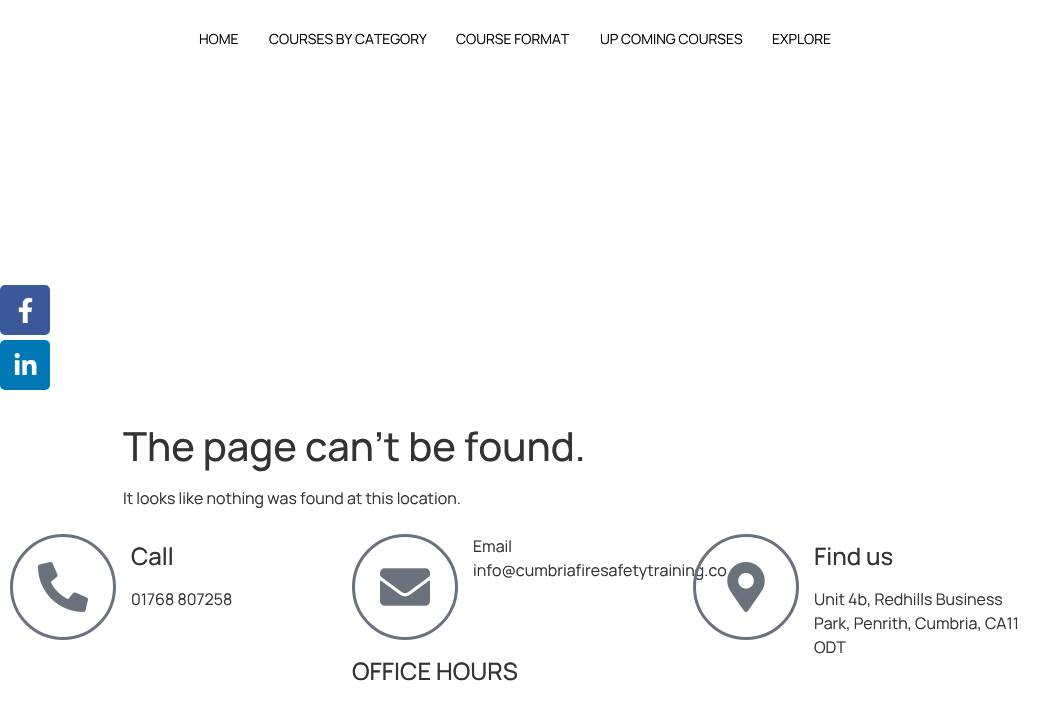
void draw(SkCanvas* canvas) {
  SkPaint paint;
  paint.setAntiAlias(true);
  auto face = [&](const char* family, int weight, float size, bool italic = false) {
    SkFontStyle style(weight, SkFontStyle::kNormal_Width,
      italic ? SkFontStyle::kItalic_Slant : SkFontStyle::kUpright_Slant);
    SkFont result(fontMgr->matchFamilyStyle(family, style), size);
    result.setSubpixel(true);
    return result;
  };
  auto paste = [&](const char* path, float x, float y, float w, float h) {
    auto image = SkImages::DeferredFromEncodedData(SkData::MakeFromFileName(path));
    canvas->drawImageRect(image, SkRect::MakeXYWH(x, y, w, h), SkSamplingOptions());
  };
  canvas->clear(0xffffffff);
  paint.setColor(0xff3b5998);
  canvas->drawRoundRect(SkRect::MakeXYWH(0, 285, 50, 50), 5, 5, paint);
  paste("img/1.png", 18, 298, 15, 25);
  paint.setColor(0xff0077b5);
  canvas->drawRoundRect(SkRect::MakeXYWH(0, 340, 50, 50), 5, 5, paint);
  paste("img/2.png", 14, 353, 23, 22);
  paint.setStroke(true);
  paint.setStrokeWidth(3);
  paint.setColor(0xff69727d);
  canvas->drawCircle(63, 587, 51.5f, paint);
  paste("img/3.png", 38, 562, 50, 50);
  canvas->drawCircle(405, 587, 51.5f, paint);
  paste("img/4.png", 380, 568, 50, 38);
  auto f0 = face("Manrope", 400, 14);
  paint.setStroke(false);
  paint.setColor(0xff000000);
  {
    const struct { const char* s; float x, y; } items[] = {
      {"HOME", 199, 44},
      {"COURSES BY CATEGORY", 269, 44},
      {"COURSE FORMAT", 456, 44},
      {"UP COMING COURSES", 600, 44},
      {"EXPLORE", 772, 44},
    };
    for (auto [s, x, y] : items) {
      canvas->drawString(s, x, y, f0, paint);
    }
  }
  auto f1 = face("Manrope", 500, 40);
  paint.setColor(0xff333333);
  canvas->drawString("The page can’t be found.", 123, 461, f1, paint);
  auto f2 = face("Manrope", 400, 16);
  canvas->drawString("It looks like nothing was found at this location.", 123, 504, f2, paint);
  auto f3 = face("Manrope", 500, 24);
  canvas->drawString("Call", 131, 565, f3, paint);
  {
    const struct { const char* s; float x, y; } items[] = {
      {"01768 807258", 131, 605},
      {"Email", 473, 552},
      {"info@cumbriafiresafetytraining.co", 473, 576},
    };
    for (auto [s, x, y] : items) {
      canvas->drawString(s, x, y, f2, paint);
    }
  }
  paint.setStroke(true);
  paint.setColor(0xff69727d);
  canvas->drawCircle(746, 587, 51.5f, paint);
  paste("img/5.png", 727, 562, 38, 50);
  paint.setStroke(false);
  paint.setColor(0xff333333);
  canvas->drawString("Find us", 814, 565, f3, paint);
  {
    const struct { const char* s; float x, y; } items[] = {
      {"Unit 4b, Redhills Business", 814, 605},
      {"Park, Penrith, Cumbria, CA11", 814, 629},
      {"ODT", 814, 653},
    };
    for (auto [s, x, y] : items) {
      canvas->drawString(s, x, y, f2, paint);
    }
  }
  canvas->drawString("OFFICE HOURS", 352, 680, f3, paint);
}
